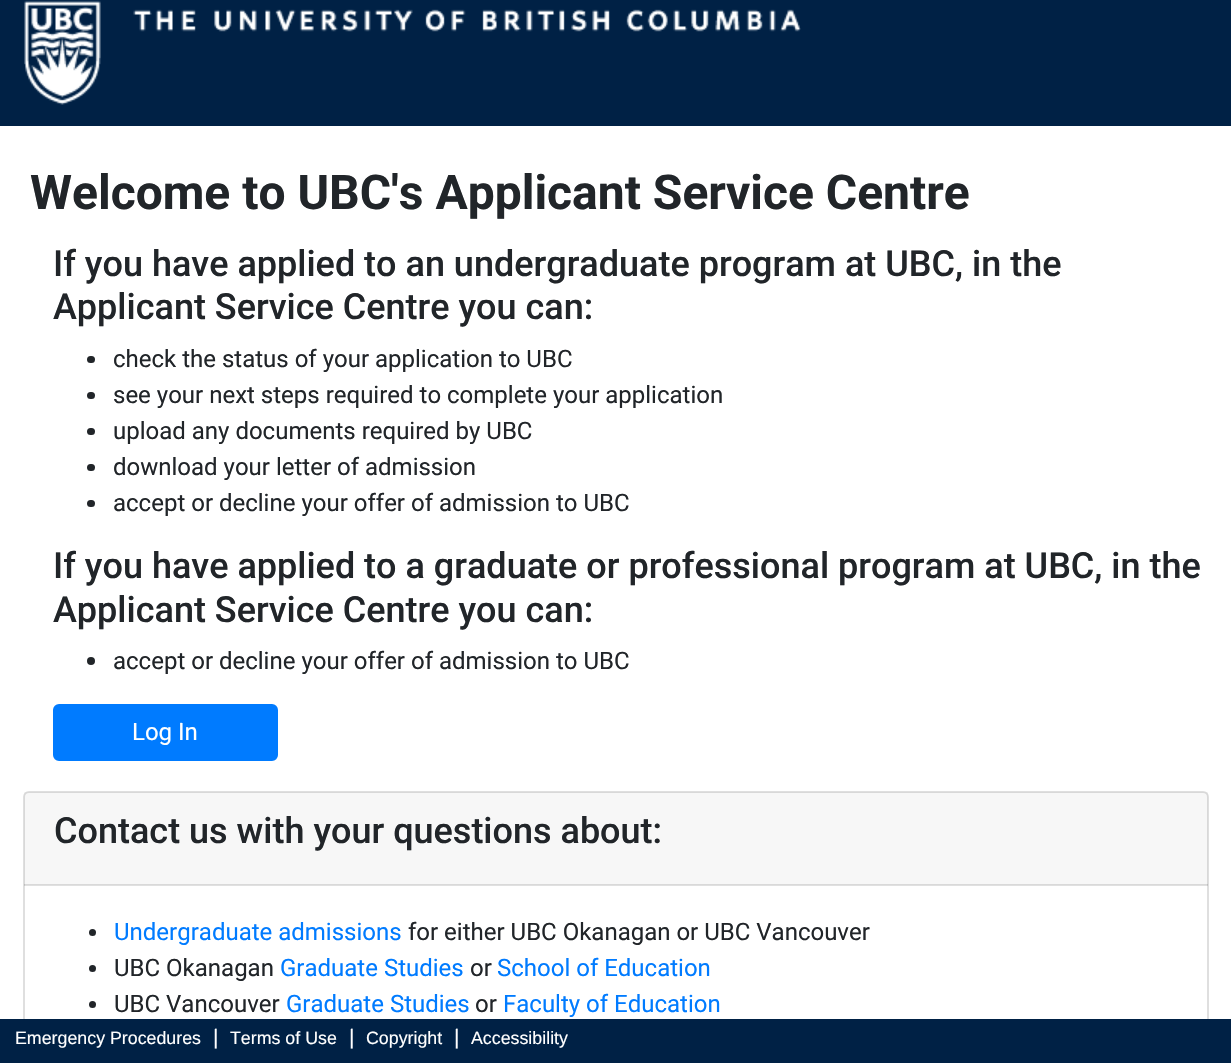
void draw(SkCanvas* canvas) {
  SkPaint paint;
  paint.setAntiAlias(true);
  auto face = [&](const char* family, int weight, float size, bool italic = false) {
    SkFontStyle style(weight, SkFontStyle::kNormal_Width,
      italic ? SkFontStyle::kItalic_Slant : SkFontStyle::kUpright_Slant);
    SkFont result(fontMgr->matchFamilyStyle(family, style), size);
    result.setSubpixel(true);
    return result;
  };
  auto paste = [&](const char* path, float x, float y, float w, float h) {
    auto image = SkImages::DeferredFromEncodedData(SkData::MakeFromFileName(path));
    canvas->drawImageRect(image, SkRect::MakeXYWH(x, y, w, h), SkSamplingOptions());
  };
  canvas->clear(0xffffffff);
  paint.setColor(0xff002145);
  canvas->drawRect(SkRect::MakeXYWH(0, 0, 1231, 126), paint);
  paste("img/1.png", 24, 0, 777, 105);
  paint.setColor(0xff212529);
  canvas->drawRoundRect(SkRect::MakeXYWH(87, 356, 8, 7), 3.5f, 3.5f, paint);
  canvas->drawRoundRect(SkRect::MakeXYWH(87, 392, 8, 7), 3.5f, 3.5f, paint);
  canvas->drawRoundRect(SkRect::MakeXYWH(87, 428, 8, 7), 3.5f, 3.5f, paint);
  canvas->drawRoundRect(SkRect::MakeXYWH(87, 464, 8, 7), 3.5f, 3.5f, paint);
  canvas->drawRoundRect(SkRect::MakeXYWH(87, 500, 8, 7), 3.5f, 3.5f, paint);
  canvas->drawCircle(91, 661, 4, paint);
  paint.setColor(0xff007bff);
  canvas->drawRoundRect(SkRect::MakeXYWH(54, 705, 223, 55), 5, 5, paint);
  paint.setStroke(true);
  paint.setStrokeWidth(2);
  canvas->drawRoundRect(SkRect::MakeXYWH(54, 705, 223, 55), 5, 5, paint);
  paint.setColor(0xffdfdfdf);
  canvas->drawRoundRect(SkRect::MakeXYWH(24, 792, 1184, 262), 5, 5, paint);
  paint.setStroke(false);
  paint.setColor(0x08000000);
  canvas->drawRect(SkRect::MakeXYWH(24, 792, 1184, 93), paint);
  paint.setColor(0x1f000000);
  canvas->drawRect(SkRect::MakeXYWH(24, 884, 1184, 2), paint);
  paint.setColor(0xff212529);
  canvas->drawCircle(92.5f, 932.5f, 3.5f, paint);
  canvas->drawCircle(92.5f, 968.5f, 3.5f, paint);
  canvas->drawCircle(92.5f, 1004.5f, 3.5f, paint);
  paint.setColor(0xff002145);
  canvas->drawRect(SkRect::MakeXYWH(0, 1019, 1231, 44), paint);
  auto f0 = face("Roboto", 700, 48);
  paint.setColor(0xff212529);
  canvas->drawString("Welcome to UBC's Applicant Service Centre", 30, 209, f0, paint);
  auto f1 = face("Roboto", 500, 36);
  canvas->drawString("If you have applied to an undergraduate program at UBC, in the", 53, 276, f1, paint);
  canvas->drawString("Applicant Service Centre you can:", 53, 319, f1, paint);
  auto f2 = face("Roboto", 400, 24);
  {
    const struct { const char* s; float x, y; } items[] = {
      {"check the status of your application to UBC", 113, 367},
      {"see your next steps required to complete your application", 113, 403},
      {"upload any documents required by UBC", 113, 439},
      {"download your letter of admission", 113, 475},
      {"accept or decline your offer of admission to UBC", 113, 511},
    };
    for (auto [s, x, y] : items) {
      canvas->drawString(s, x, y, f2, paint);
    }
  }
  canvas->drawString("If you have applied to a graduate or professional program at UBC, in the", 53, 578, f1, paint);
  canvas->drawString("Applicant Service Centre you can:", 53, 622, f1, paint);
  canvas->drawString("accept or decline your offer of admission to UBC", 113, 669, f2, paint);
  paint.setColor(0xffffffff);
  canvas->drawString("Log In", 132, 740, f2, paint);
  paint.setColor(0xff212529);
  canvas->drawString("Contact us with your questions about:", 54, 843, f1, paint);
  paint.setColor(0xff007bff);
  canvas->drawString("Undergraduate admissions", 114, 940, f2, paint);
  paint.setColor(0xff212529);
  canvas->drawString("for either UBC Okanagan or UBC Vancouver", 408, 940, f2, paint);
  canvas->drawString("UBC Okanagan", 114, 976, f2, paint);
  paint.setColor(0xff007bff);
  canvas->drawString("Graduate Studies", 280, 976, f2, paint);
  paint.setColor(0xff212529);
  canvas->drawString("or", 470, 976, f2, paint);
  paint.setColor(0xff007bff);
  canvas->drawString("School of Education", 497, 976, f2, paint);
  paint.setColor(0xff212529);
  canvas->drawString("UBC Vancouver", 114, 1012, f2, paint);
  paint.setColor(0xff007bff);
  canvas->drawString("Graduate Studies", 286, 1012, f2, paint);
  paint.setColor(0xff212529);
  canvas->drawString("or", 475, 1012, f2, paint);
  paint.setColor(0xff007bff);
  canvas->drawString("Faculty of Education", 503, 1012, f2, paint);
  auto f3 = face("Liberation Sans", 400, 17.8f);
  paint.setColor(0xffffffff);
  canvas->drawString("Emergency Procedures", 15, 1044, f3, paint);
  auto f4 = face("Liberation Sans", 400, 21);
  canvas->drawString("|", 213, 1044, f4, paint);
  canvas->drawString("Terms of Use", 230, 1044, f3, paint);
  canvas->drawString("|", 349, 1044, f4, paint);
  canvas->drawString("Copyright", 366, 1044, f3, paint);
  canvas->drawString("|", 454, 1044, f4, paint);
  canvas->drawString("Accessibility", 471, 1044, f3, paint);
}
